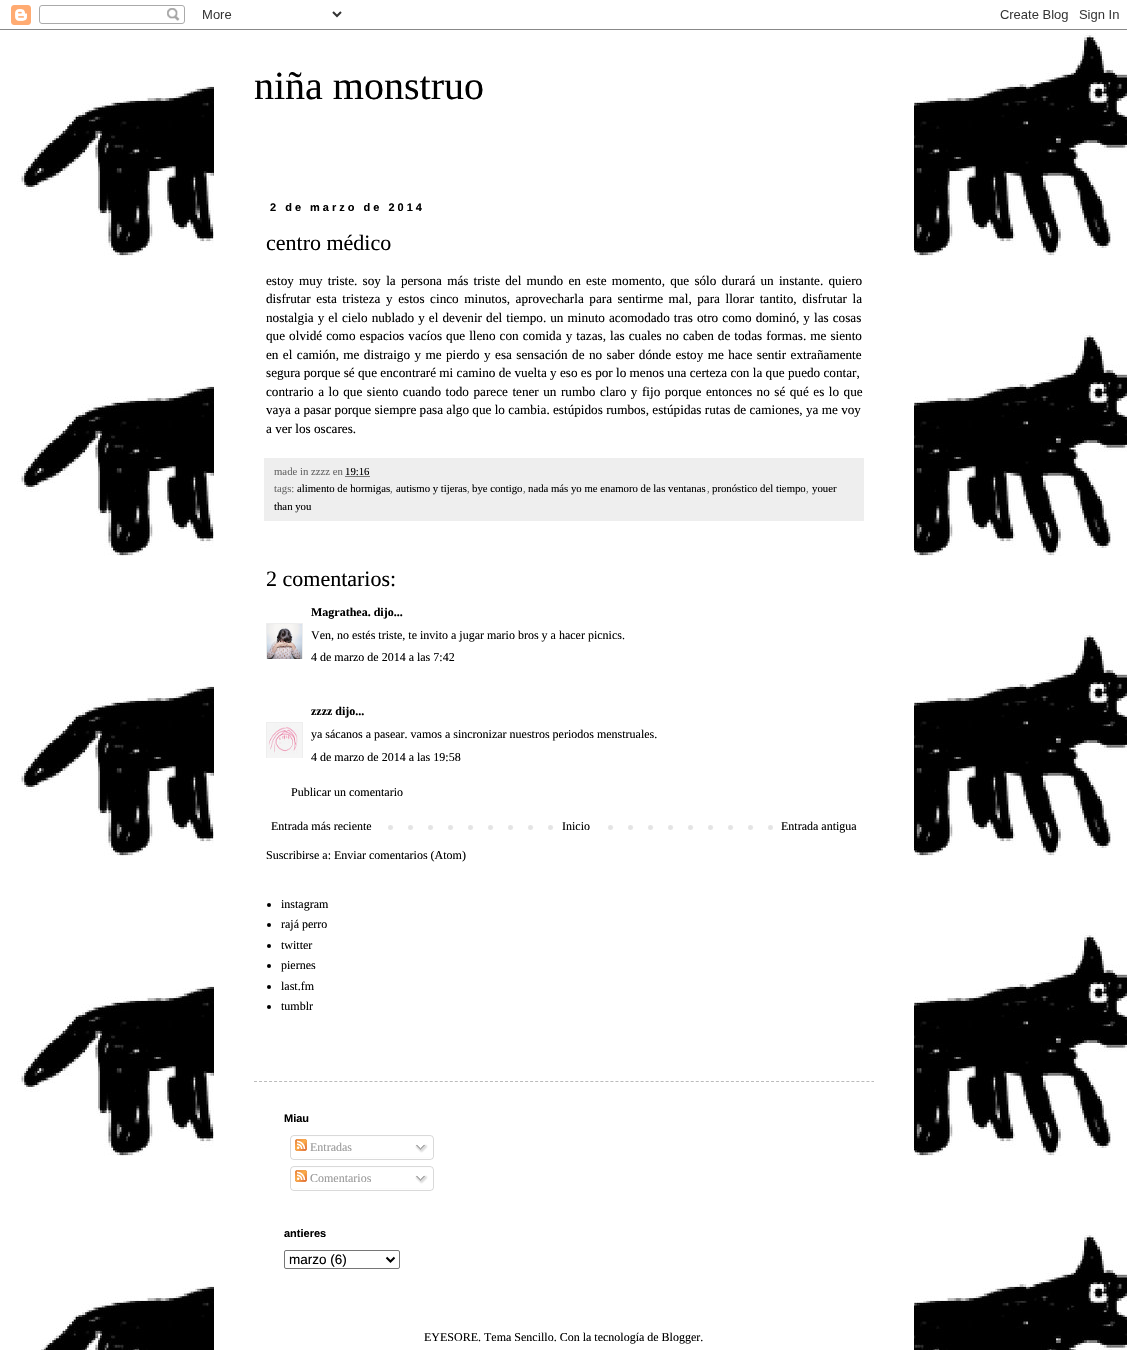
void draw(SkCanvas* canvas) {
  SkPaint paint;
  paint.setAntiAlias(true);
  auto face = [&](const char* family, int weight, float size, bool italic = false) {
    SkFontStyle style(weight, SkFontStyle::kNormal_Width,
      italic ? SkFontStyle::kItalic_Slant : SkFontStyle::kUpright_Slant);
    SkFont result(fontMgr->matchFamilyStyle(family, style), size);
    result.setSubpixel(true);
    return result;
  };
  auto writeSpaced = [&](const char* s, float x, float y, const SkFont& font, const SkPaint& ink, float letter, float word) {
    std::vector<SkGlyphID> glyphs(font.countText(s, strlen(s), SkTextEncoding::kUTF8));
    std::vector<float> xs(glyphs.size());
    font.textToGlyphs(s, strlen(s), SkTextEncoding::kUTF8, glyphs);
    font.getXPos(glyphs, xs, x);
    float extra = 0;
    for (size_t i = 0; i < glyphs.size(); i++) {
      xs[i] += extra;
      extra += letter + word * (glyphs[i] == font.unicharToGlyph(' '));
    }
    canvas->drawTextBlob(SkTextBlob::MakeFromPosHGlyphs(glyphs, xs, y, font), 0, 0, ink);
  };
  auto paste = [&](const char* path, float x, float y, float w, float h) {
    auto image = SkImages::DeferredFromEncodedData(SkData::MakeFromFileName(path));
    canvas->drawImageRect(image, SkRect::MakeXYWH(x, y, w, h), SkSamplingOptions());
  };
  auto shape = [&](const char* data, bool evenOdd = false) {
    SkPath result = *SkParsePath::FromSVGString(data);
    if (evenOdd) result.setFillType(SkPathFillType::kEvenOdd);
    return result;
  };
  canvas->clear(0xffffffff);
  paste("img/1.png", 17, 33, 1110, 1317);
  paste("img/2.png", 0, 5, 1127, 25);
  paint.setColor(0xffffffff);
  canvas->drawRect(SkRect::MakeXYWH(214, 33, 700, 1317), paint);
  paint.setColor(0xffeeeeee);
  canvas->drawRect(SkRect::MakeXYWH(264, 458, 600, 63), paint);
  paint.setStroke(true);
  paint.setStrokeWidth(1);
  paint.setColor(0xff000000);
  paint.setPathEffect(SkDashPathEffect::Make({{1, 1}}, 0));
  canvas->drawPath(shape("M345.5 476.5H370"), paint);
  paint.setPathEffect(nullptr);
  canvas->save();
  canvas->clipRect(SkRect::MakeXYWH(266, 623, 37, 36));
  paint.setColor(0xffeeeeee);
  canvas->drawRect(SkRect::MakeXYWH(266.5f, 623.5f, 36, 36), paint);
  canvas->restore();
  paste("img/3.png", 267, 624, 35, 35);
  canvas->save();
  canvas->clipRect(SkRect::MakeXYWH(266, 722, 37, 36));
  canvas->drawRect(SkRect::MakeXYWH(266.5f, 722.5f, 36, 36), paint);
  canvas->restore();
  paste("img/4.png", 267, 723, 35, 35);
  paste("img/5.png", 388, 825, 385, 5);
  paint.setStroke(false);
  paint.setColor(0xffffffff);
  canvas->drawRect(SkRect::MakeXYWH(568, 825, 26, 5), paint);
  paint.setColor(0xff000000);
  canvas->drawCircle(269, 905, 2, paint);
  canvas->drawCircle(269, 925, 2, paint);
  canvas->drawCircle(269, 946, 2, paint);
  canvas->drawCircle(269, 966, 2, paint);
  canvas->drawCircle(269, 987, 2, paint);
  canvas->drawCircle(269, 1007, 2, paint);
  paint.setStroke(true);
  paint.setColor(0xffbbbbbb);
  paint.setPathEffect(SkDashPathEffect::Make({{3, 2.02f}}, 0));
  canvas->drawPath(shape("M254 1081.5H874"), paint);
  paint.setPathEffect(nullptr);
  paste("img/6.png", 290, 1135, 144, 22);
  paste("img/7.png", 295, 1139, 12, 12);
  paste("img/8.png", 415, 1144, 13, 9);
  paste("img/9.png", 290, 1157, 144, 3);
  paste("img/6.png", 290, 1166, 144, 22);
  paste("img/7.png", 295, 1170, 12, 12);
  paste("img/8.png", 415, 1175, 13, 9);
  paste("img/9.png", 290, 1188, 144, 3);
  paint.setColor(0xff767676);
  canvas->drawRoundRect(SkRect::MakeXYWH(284.5f, 1250.5f, 115, 18), 1.5f, 1.5f, paint);
  paint.setStrokeWidth(2);
  paint.setColor(0xff000000);
  canvas->drawPath(shape("M386.5 1257.5L390.5 1261.5L394.5 1257.5"), paint);
  auto f0 = face("Liberation Serif", 400, 40);
  paint.setStroke(false);
  canvas->drawString("niña monstruo", 254, 99, f0, paint);
  auto f1 = face("Liberation Sans", 700, 11);
  writeSpaced("2 de marzo de 2014", 270, 211, f1, paint, 3, 0);
  auto f2 = face("Liberation Serif", 400, 22);
  canvas->drawString("centro médico", 266, 250, f2, paint);
  auto f3 = face("Liberation Serif", 400, 13.2f);
  writeSpaced("estoy muy triste. soy la persona más triste del mundo en este momento, que sólo durará un instante. quiero", 266, 285, f3, paint, 0, 1.9f);
  writeSpaced("disfrutar esta tristeza y estos cinco minutos, aprovecharla para sentirme mal, para llorar tantito, disfrutar la", 266, 303, f3, paint, 0, 2.25f);
  writeSpaced("nostalgia y el cielo nublado y el devenir del tiempo. un minuto acomodado tras otro como dominó, y las cosas", 266, 322, f3, paint, 0, 0.75f);
  writeSpaced("que olvidé como espacios vacíos que lleno con comida y tazas, las cuales no caben de todas formas. me siento", 266, 340, f3, paint, 0, 0.75f);
  writeSpaced("en el camión, me distraigo y me pierdo y esa sensación de no saber dónde estoy me hace sentir extrañamente", 266, 359, f3, paint, 0, 1.1f);
  canvas->drawString("segura porque sé que encontraré mi camino de vuelta y eso es por lo menos una certeza con la que puedo contar,", 266, 377, f3, paint);
  writeSpaced("contrario a lo que siento cuando todo parece tener un rumbo claro y fijo porque entonces no sé qué es lo que", 266, 396, f3, paint, 0, 1.2f);
  canvas->drawString("vaya a pasar porque siempre pasa algo que lo cambia. estúpidos rumbos, estúpidas rutas de camiones, ya me voy", 266, 414, f3, paint);
  canvas->drawString("a ver los oscares.", 266, 433, f3, paint);
  auto f4 = face("Liberation Serif", 400, 10.75f);
  paint.setColor(0xff666666);
  canvas->drawString("made in zzzz en", 274, 475, f4, paint);
  paint.setColor(0xff000000);
  canvas->drawString("19:16", 345, 475, f4, paint);
  paint.setColor(0xff666666);
  canvas->drawString("tags:", 274, 492, f4, paint);
  paint.setColor(0xff000000);
  canvas->drawString("alimento de hormigas", 297, 492, f4, paint);
  paint.setColor(0xff666666);
  canvas->drawString(",", 390, 492, f4, paint);
  paint.setColor(0xff000000);
  canvas->drawString("autismo y tijeras", 396, 492, f4, paint);
  paint.setColor(0xff666666);
  canvas->drawString(",", 467, 492, f4, paint);
  paint.setColor(0xff000000);
  canvas->drawString("bye contigo", 472, 492, f4, paint);
  paint.setColor(0xff666666);
  canvas->drawString(",", 523, 492, f4, paint);
  paint.setColor(0xff000000);
  canvas->drawString("nada más yo me enamoro de las ventanas", 528, 492, f4, paint);
  paint.setColor(0xff666666);
  canvas->drawString(",", 707, 492, f4, paint);
  paint.setColor(0xff000000);
  canvas->drawString("pronóstico del tiempo", 712, 492, f4, paint);
  paint.setColor(0xff666666);
  canvas->drawString(",", 806, 492, f4, paint);
  paint.setColor(0xff000000);
  canvas->drawString("youer", 812, 492, f4, paint);
  canvas->drawString("than you", 274, 510, f4, paint);
  canvas->drawString("2 comentarios:", 266, 586, f2, paint);
  auto f5 = face("Liberation Serif", 700, 12);
  canvas->drawString("Magrathea. dijo...", 311, 616, f5, paint);
  auto f6 = face("Liberation Serif", 400, 12);
  canvas->drawString("Ven, no estés triste, te invito a jugar mario bros y a hacer picnics.", 311, 639, f6, paint);
  canvas->drawString("4 de marzo de 2014 a las 7:42", 311, 661, f6, paint);
  canvas->drawString("zzzz dijo...", 311, 715, f5, paint);
  {
    const struct { const char* s; float x, y; } items[] = {
      {"ya sácanos a pasear. vamos a sincronizar nuestros periodos menstruales.", 311, 738},
      {"4 de marzo de 2014 a las 19:58", 311, 761},
      {"Publicar un comentario", 291, 796},
      {"Entrada más reciente", 271, 830},
      {"Inicio", 562, 830},
      {"Entrada antigua", 781, 830},
      {"Suscribirse a: Enviar comentarios (Atom)", 266, 859},
      {"instagram", 281, 908},
      {"rajá perro", 281, 928},
      {"twitter", 281, 949},
      {"piernes", 281, 969},
      {"last.fm", 281, 990},
      {"tumblr", 281, 1010},
    };
    for (auto [s, x, y] : items) {
      canvas->drawString(s, x, y, f6, paint);
    }
  }
  canvas->drawString("Miau", 284, 1122, f1, paint);
  paint.setColor(0xff999999);
  canvas->drawString("Entradas", 310, 1151, f6, paint);
  canvas->drawString("Comentarios", 310, 1182, f6, paint);
  paint.setColor(0xff000000);
  canvas->drawString("antieres", 284, 1237, f1, paint);
  auto f7 = face("Liberation Sans", 400, 13.5f);
  canvas->drawString("marzo (6)", 289, 1264, f7, paint);
  canvas->drawString("EYESORE. Tema Sencillo. Con la tecnología de Blogger.", 424, 1341, f6, paint);
}
